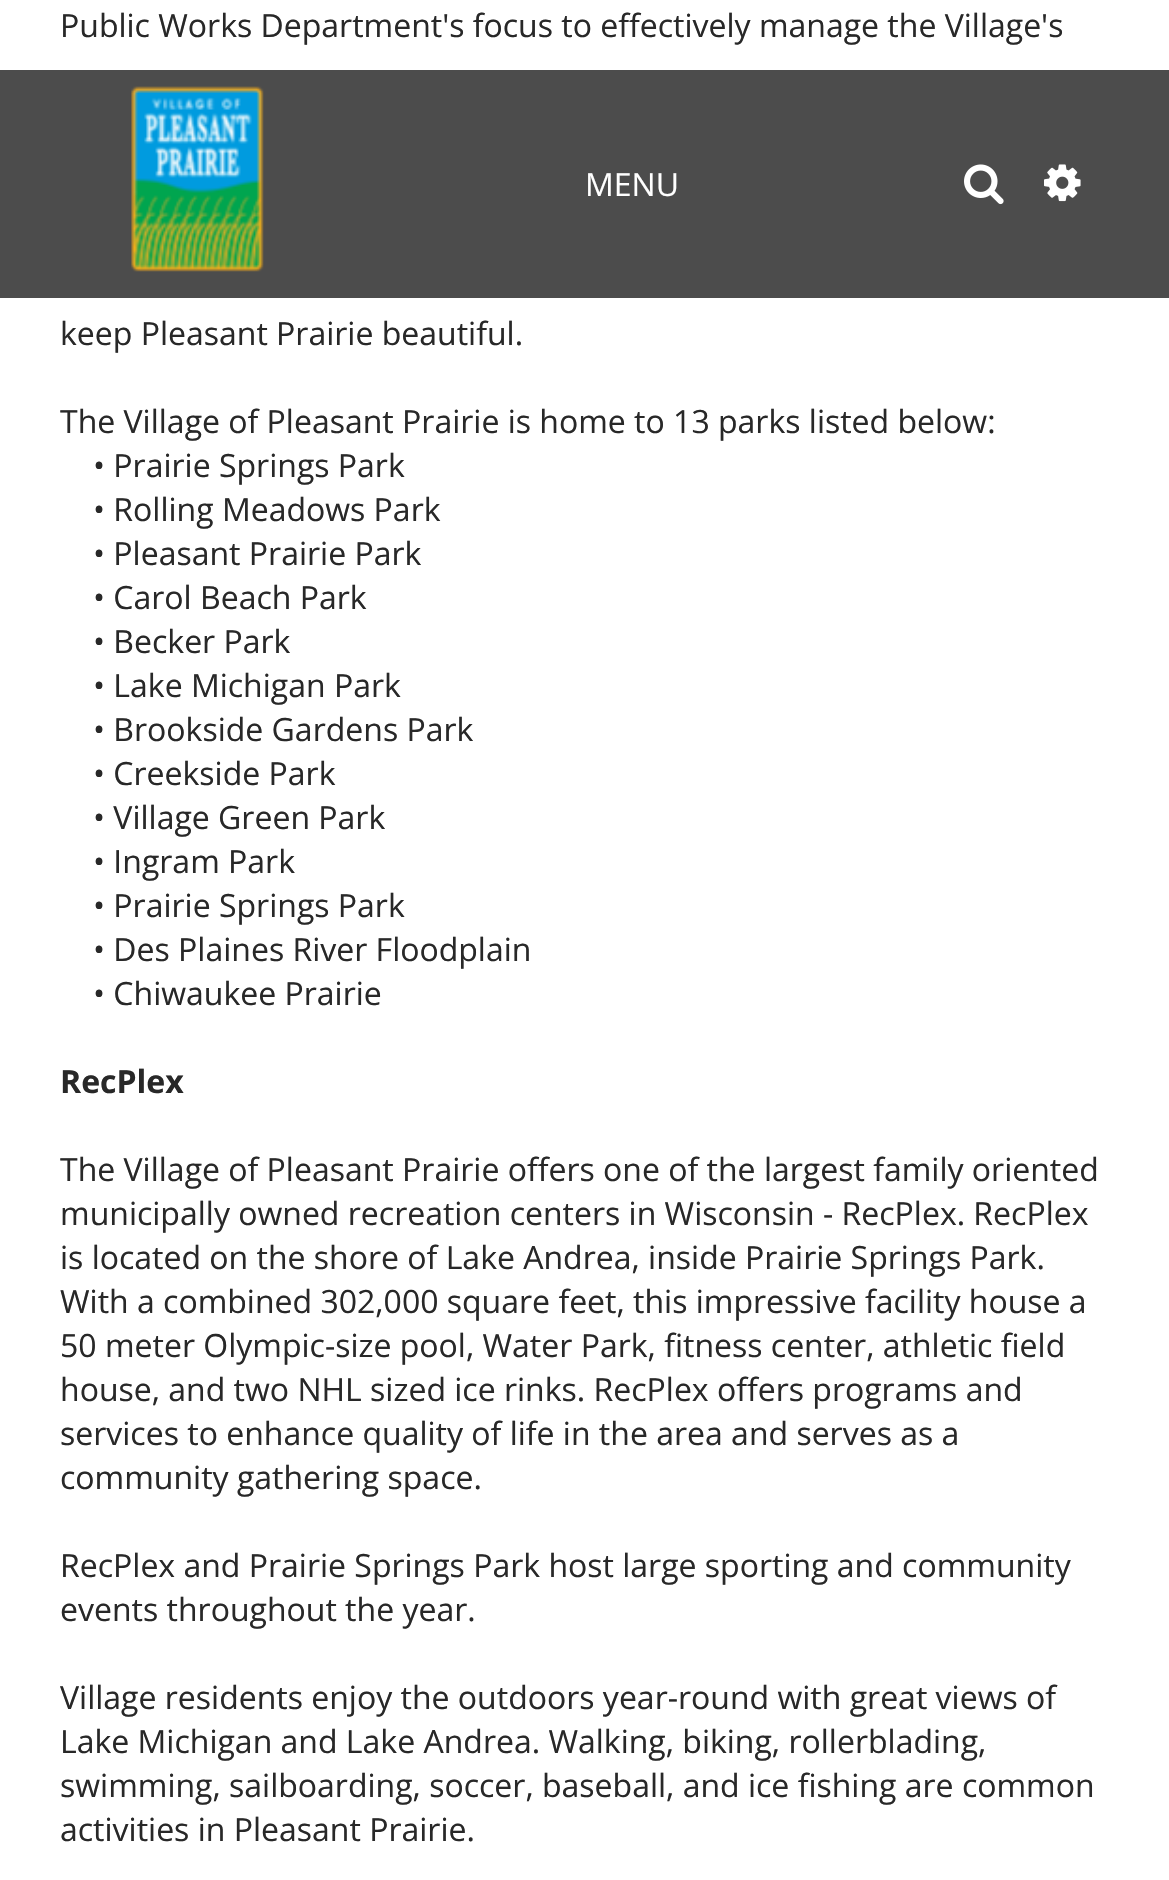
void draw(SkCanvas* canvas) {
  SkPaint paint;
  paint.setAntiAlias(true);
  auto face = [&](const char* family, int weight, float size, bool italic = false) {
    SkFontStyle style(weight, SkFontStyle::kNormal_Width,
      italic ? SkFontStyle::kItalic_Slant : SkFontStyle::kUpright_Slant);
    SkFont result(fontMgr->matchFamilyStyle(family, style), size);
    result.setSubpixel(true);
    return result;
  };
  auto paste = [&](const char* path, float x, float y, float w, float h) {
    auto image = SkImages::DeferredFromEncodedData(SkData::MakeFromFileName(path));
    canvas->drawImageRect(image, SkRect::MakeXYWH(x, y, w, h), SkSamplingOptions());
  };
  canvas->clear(0xffffffff);
  paint.setColor(0xb3000000);
  canvas->drawRect(SkRect::MakeXYWH(0, 70, 1169, 228), paint);
  paste("img/1.png", 131, 86, 133, 186);
  paste("img/2.png", 964, 164, 40, 41);
  paste("img/3.png", 1044, 164, 37, 38);
  auto f0 = face("Open Sans", 400, 32);
  paint.setColor(0xff282828);
  {
    const struct { const char* s; float x, y; } items[] = {
      {"Public Works Department's focus to effectively manage the Village's", 60, 37},
      {"keep Pleasant Prairie beautiful.", 60, 345},
      {"The Village of Pleasant Prairie is home to 13 parks listed below:", 60, 433},
      {"• Prairie Springs Park", 93, 477},
      {"• Rolling Meadows Park", 93, 521},
      {"• Pleasant Prairie Park", 93, 565},
      {"• Carol Beach Park", 93, 609},
      {"• Becker Park", 93, 653},
      {"• Lake Michigan Park", 93, 697},
      {"• Brookside Gardens Park", 93, 741},
      {"• Creekside Park", 93, 785},
      {"• Village Green Park", 93, 829},
      {"• Ingram Park", 93, 873},
      {"• Prairie Springs Park", 93, 917},
      {"• Des Plaines River Floodplain", 93, 961},
      {"• Chiwaukee Prairie", 93, 1005},
    };
    for (auto [s, x, y] : items) {
      canvas->drawString(s, x, y, f0, paint);
    }
  }
  auto f1 = face("Open Sans", 700, 32);
  canvas->drawString("RecPlex", 60, 1093, f1, paint);
  {
    const struct { const char* s; float x, y; } items[] = {
      {"The Village of Pleasant Prairie offers one of the largest family oriented", 60, 1181},
      {"municipally owned recreation centers in Wisconsin - RecPlex. RecPlex", 60, 1225},
      {"is located on the shore of Lake Andrea, inside Prairie Springs Park.", 60, 1269},
      {"With a combined 302,000 square feet, this impressive facility house a", 60, 1313},
      {"50 meter Olympic-size pool, Water Park, fitness center, athletic field", 60, 1357},
      {"house, and two NHL sized ice rinks. RecPlex offers programs and", 60, 1401},
      {"services to enhance quality of life in the area and serves as a", 60, 1445},
      {"community gathering space.", 60, 1489},
      {"RecPlex and Prairie Springs Park host large sporting and community", 60, 1577},
      {"events throughout the year.", 60, 1621},
      {"Village residents enjoy the outdoors year-round with great views of", 60, 1709},
      {"Lake Michigan and Lake Andrea. Walking, biking, rollerblading,", 60, 1753},
      {"swimming, sailboarding, soccer, baseball, and ice fishing are common", 60, 1797},
      {"activities in Pleasant Prairie.", 60, 1841},
    };
    for (auto [s, x, y] : items) {
      canvas->drawString(s, x, y, f0, paint);
    }
  }
  paint.setColor(0xffffffff);
  canvas->drawString("MENU", 585, 196, f0, paint);
}
